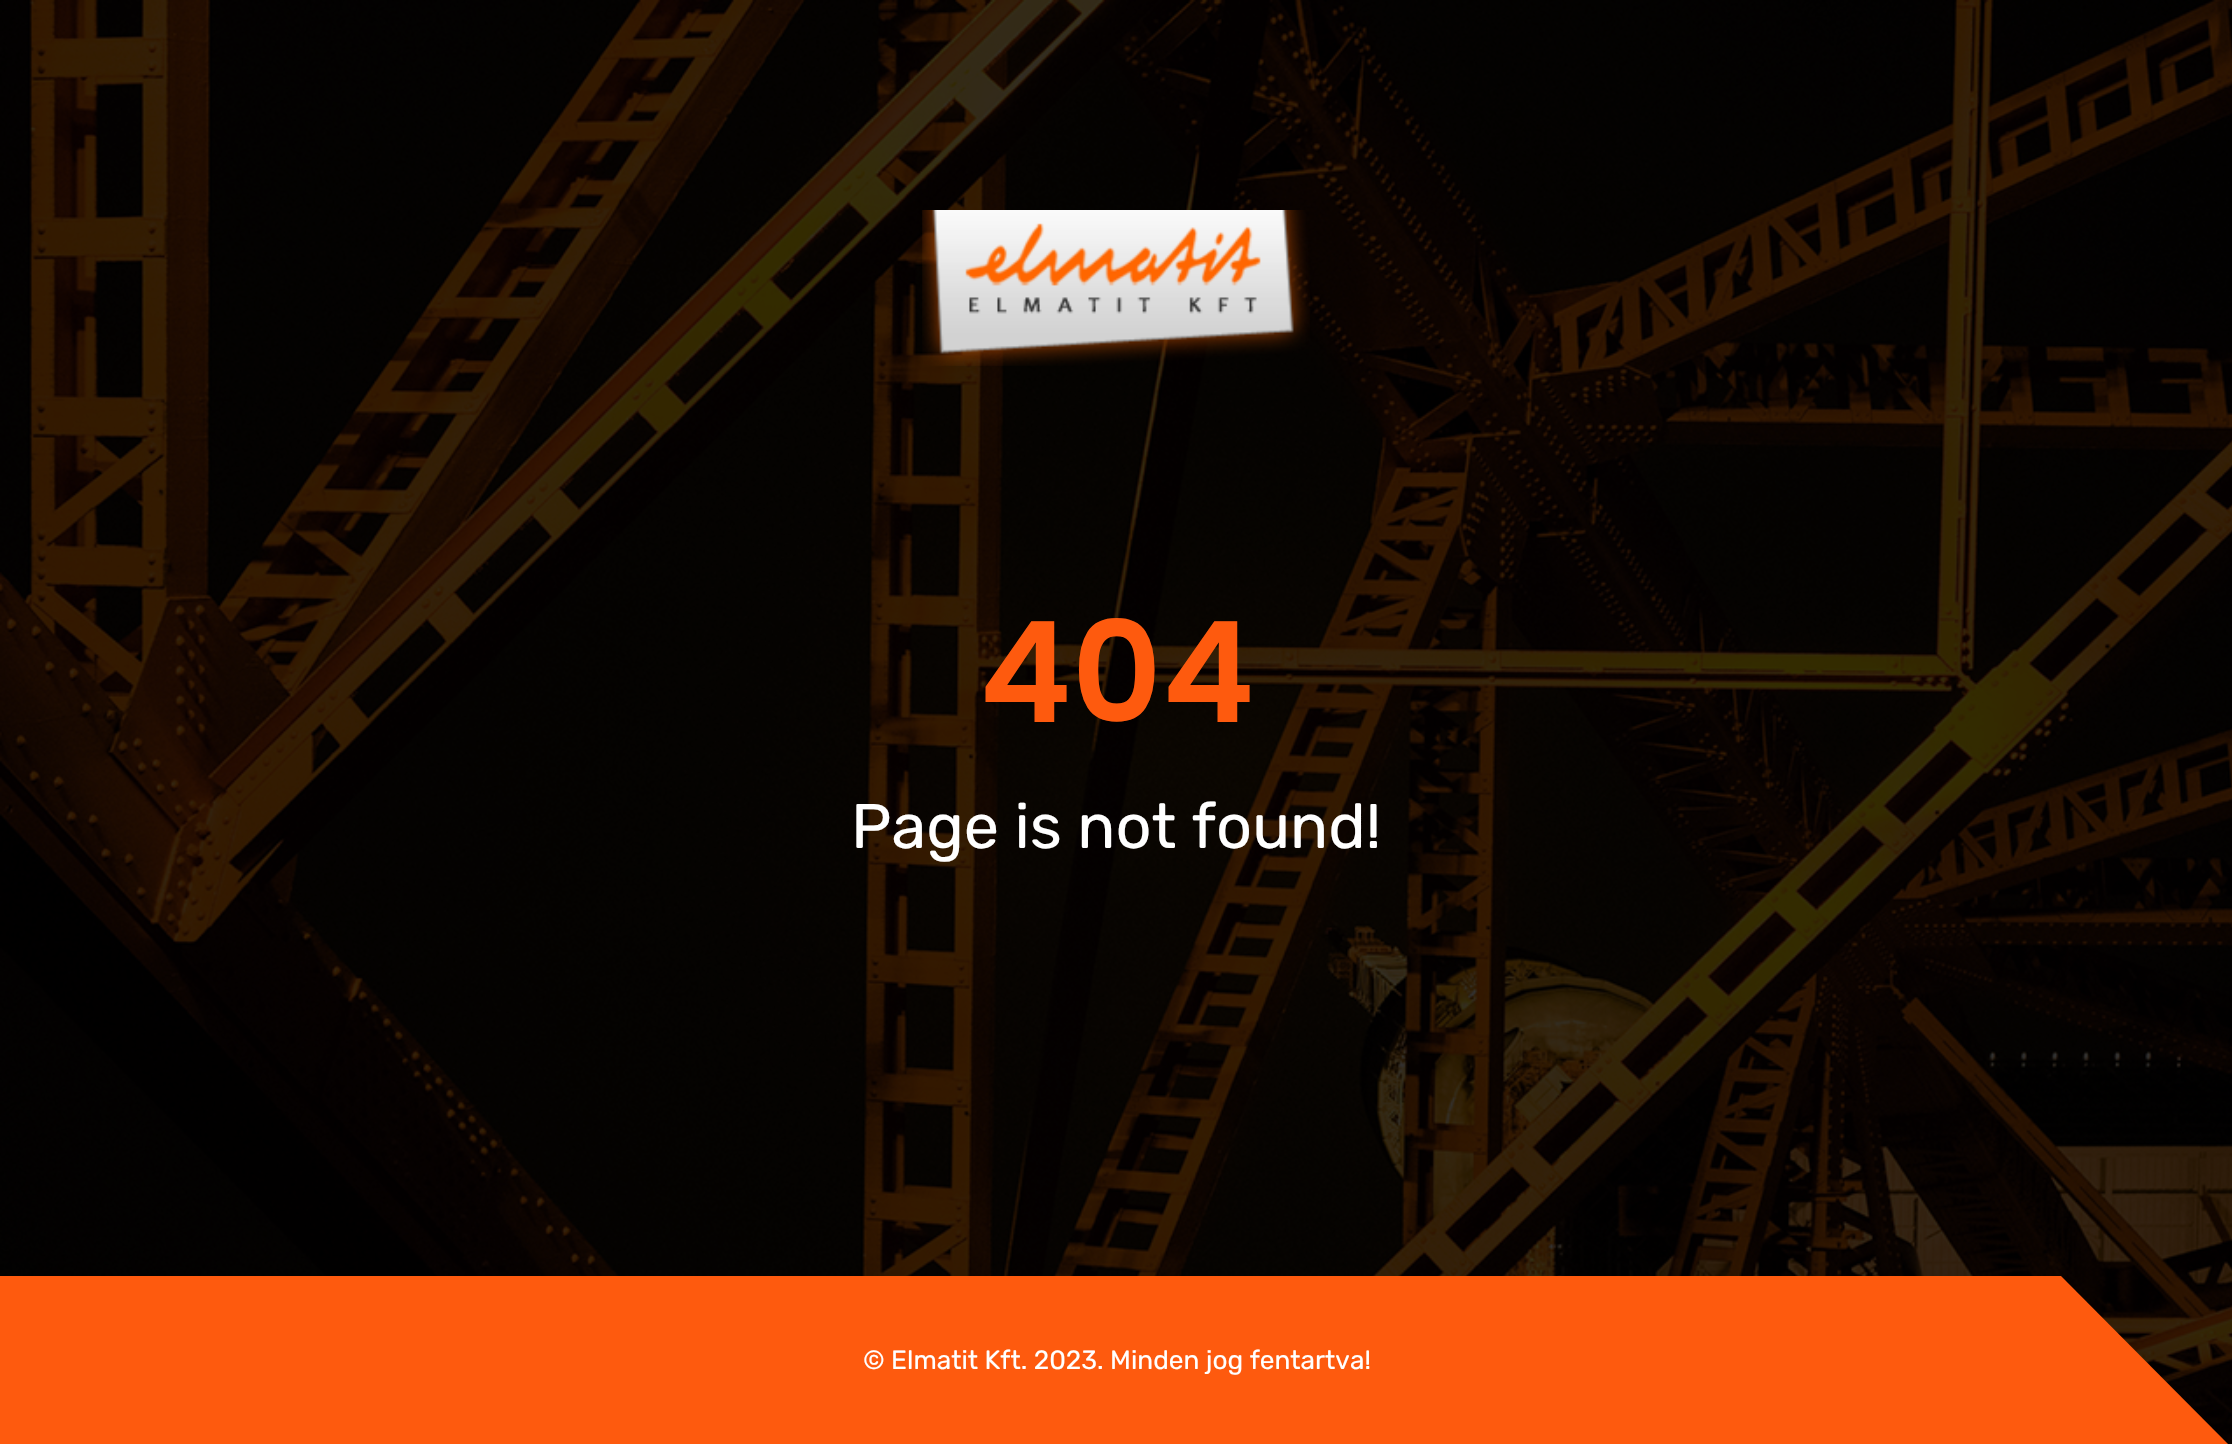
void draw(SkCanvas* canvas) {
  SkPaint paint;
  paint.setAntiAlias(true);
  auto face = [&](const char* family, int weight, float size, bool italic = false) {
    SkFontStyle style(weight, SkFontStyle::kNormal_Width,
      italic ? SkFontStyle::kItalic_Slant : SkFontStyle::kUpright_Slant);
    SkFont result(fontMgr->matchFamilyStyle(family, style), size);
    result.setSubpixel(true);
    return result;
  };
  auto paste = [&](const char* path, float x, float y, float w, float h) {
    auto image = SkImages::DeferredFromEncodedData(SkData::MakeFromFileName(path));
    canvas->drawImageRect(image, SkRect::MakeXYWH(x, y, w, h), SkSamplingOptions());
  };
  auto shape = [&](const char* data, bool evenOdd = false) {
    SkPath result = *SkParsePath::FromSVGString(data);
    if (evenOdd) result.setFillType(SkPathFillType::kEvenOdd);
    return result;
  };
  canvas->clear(0xffffffff);
  paste("img/1.png", 0, 0, 2232, 1444);
  paste("img/2.png", 922, 210, 388, 156);
  paint.setColor(0xfffe5a0e);
  canvas->drawPath(shape("M-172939 1276H2061L2230 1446H-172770Z"), paint);
  auto f0 = face("Poppins", 600, 140);
  canvas->drawString("404", 979, 722, f0, paint);
  auto f1 = face("Rubik", 400, 63);
  paint.setColor(0xffffffff);
  canvas->drawString("Page is not found!", 851, 848, f1, paint);
  auto f2 = face("Rubik", 400, 26.25f);
  canvas->drawString("© Elmatit Kft. 2023. Minden jog fentartva!", 863, 1369, f2, paint);
}
